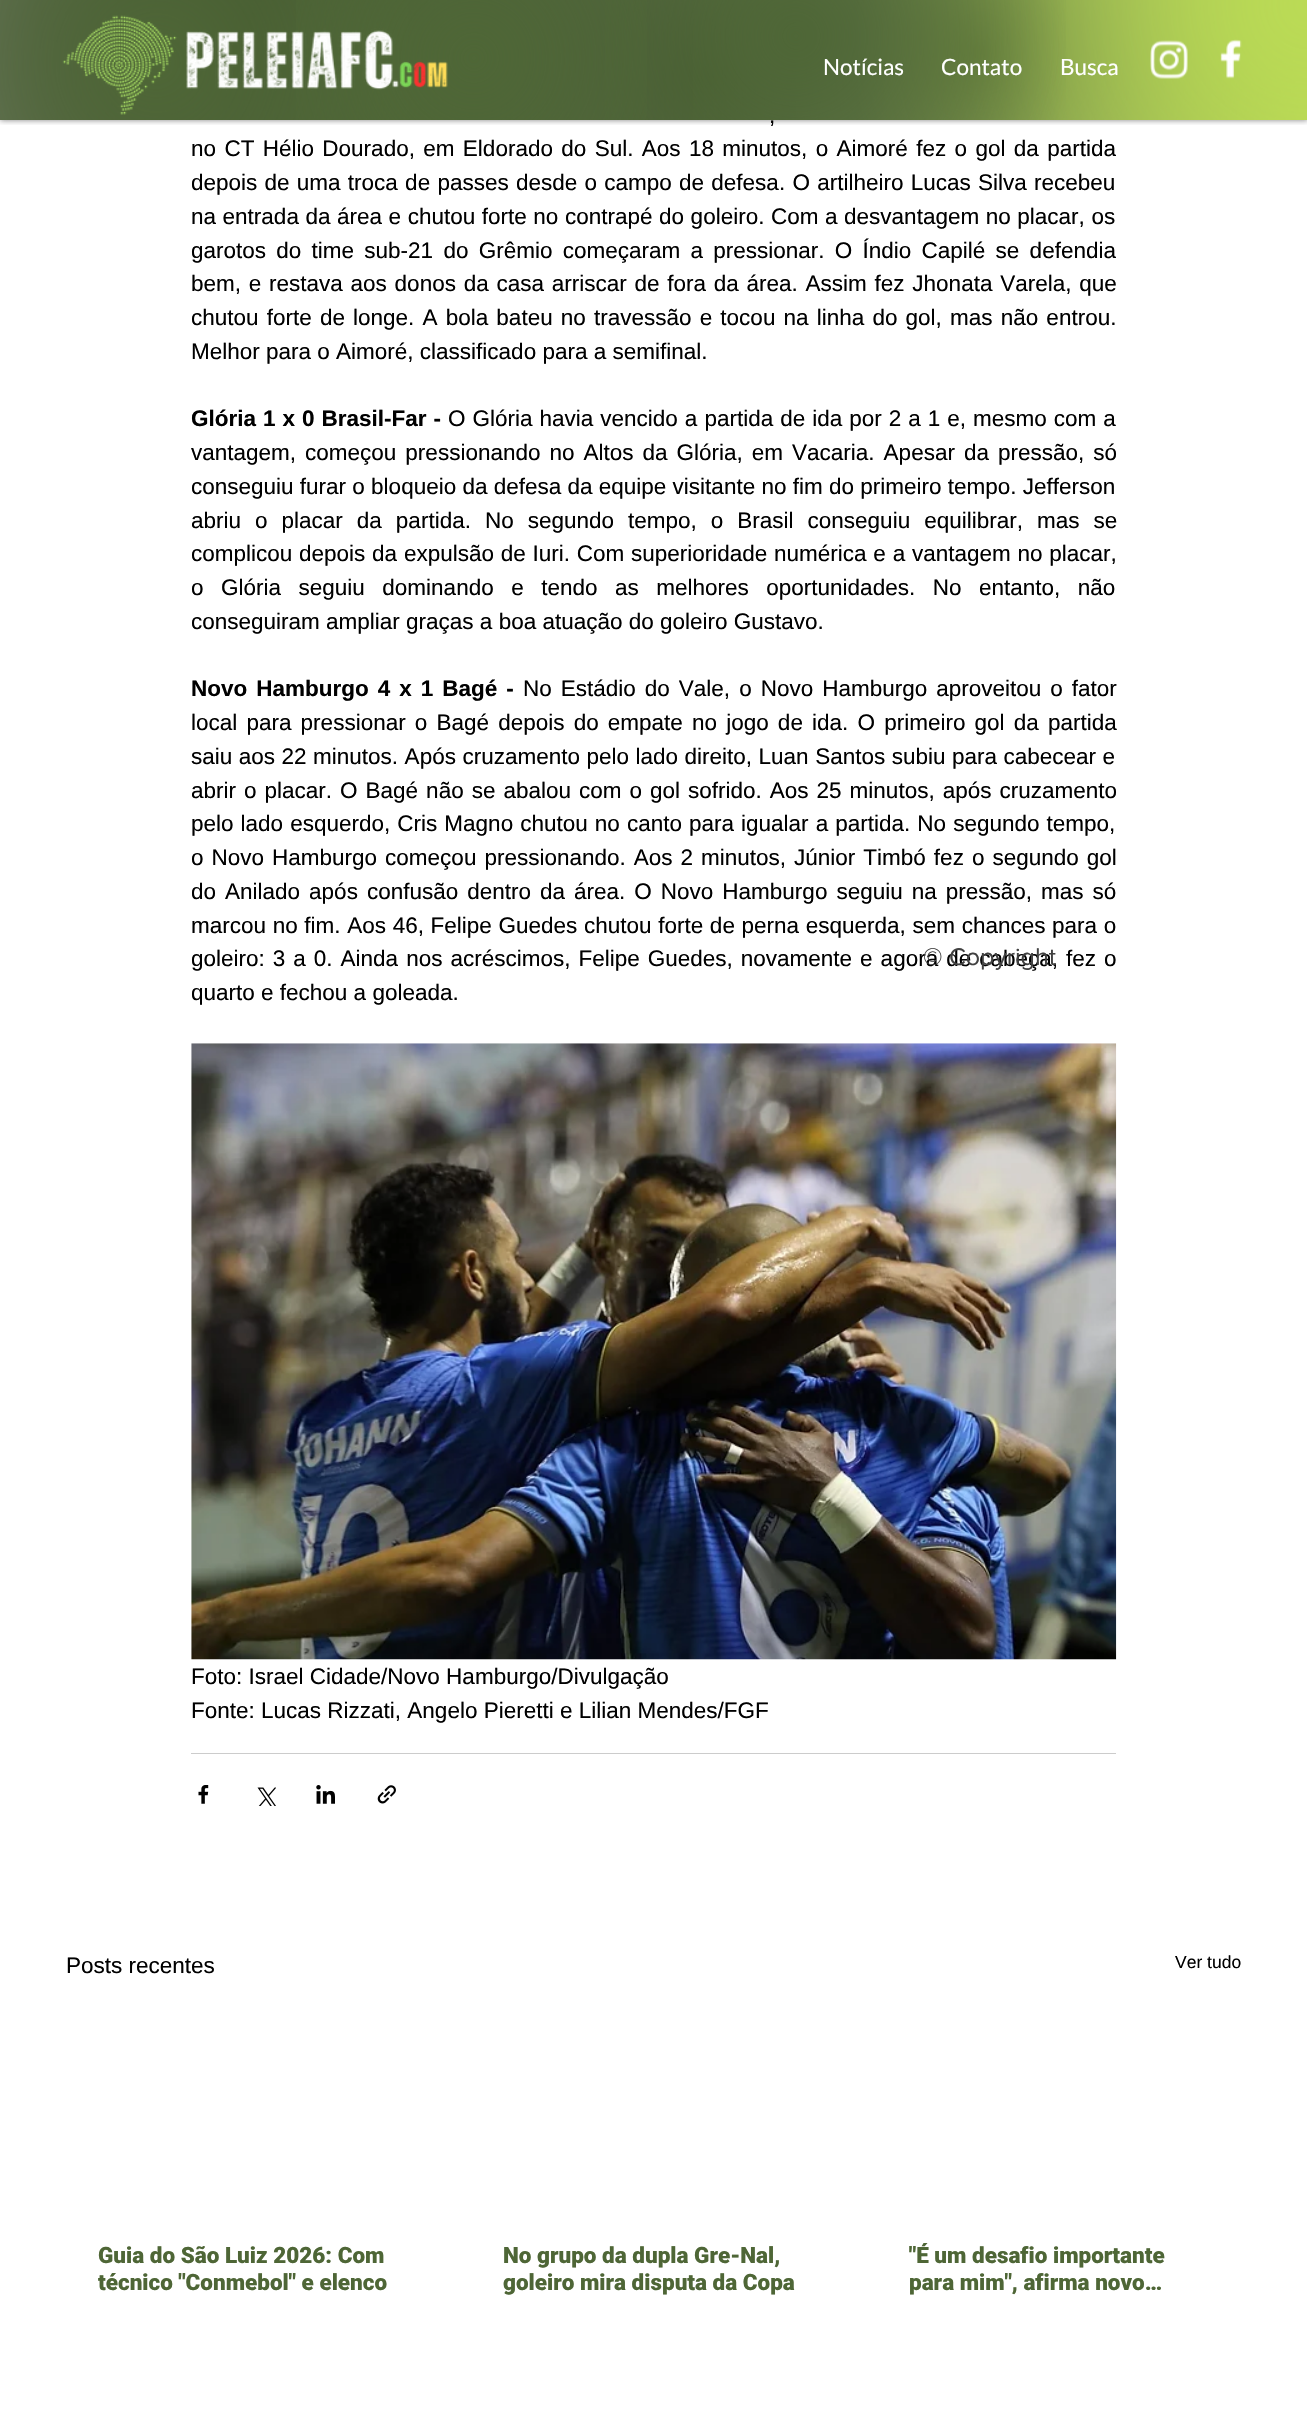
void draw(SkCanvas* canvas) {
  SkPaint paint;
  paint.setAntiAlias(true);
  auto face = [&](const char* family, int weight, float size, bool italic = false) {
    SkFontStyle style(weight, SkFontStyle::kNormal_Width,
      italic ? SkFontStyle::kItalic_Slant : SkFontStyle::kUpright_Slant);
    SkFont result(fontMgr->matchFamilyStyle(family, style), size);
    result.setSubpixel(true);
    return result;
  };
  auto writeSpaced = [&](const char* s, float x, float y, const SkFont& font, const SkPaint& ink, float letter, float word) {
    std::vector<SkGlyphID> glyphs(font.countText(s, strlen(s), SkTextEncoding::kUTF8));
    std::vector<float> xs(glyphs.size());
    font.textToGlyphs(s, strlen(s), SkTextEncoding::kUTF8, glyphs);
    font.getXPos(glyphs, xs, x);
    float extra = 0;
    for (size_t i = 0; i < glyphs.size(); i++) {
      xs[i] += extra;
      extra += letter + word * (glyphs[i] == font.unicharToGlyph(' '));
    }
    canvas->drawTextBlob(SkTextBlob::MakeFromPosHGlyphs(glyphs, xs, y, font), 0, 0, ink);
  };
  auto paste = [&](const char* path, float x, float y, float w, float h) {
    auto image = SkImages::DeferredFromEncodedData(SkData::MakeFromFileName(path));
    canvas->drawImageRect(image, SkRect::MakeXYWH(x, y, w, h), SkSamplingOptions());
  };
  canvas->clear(0xffffffff);
  canvas->save();
  canvas->clipRect(SkRect::MakeXYWH(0, 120, 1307, 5));
  paint.setColor(0x80000000);
  paint.setMaskFilter(SkMaskFilter::MakeBlur(kNormal_SkBlurStyle, 3));
  canvas->drawRect(SkRect::MakeXYWH(0, 0, 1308, 120), paint);
  paint.setMaskFilter(nullptr);
  canvas->restore();
  {
    const SkColor colors[] = {0xff4e6636, 0x004e6636};
    const float stops[] = {0, 0.7f};
    paint.setShader(SkGradientShader::MakeRadial({709, 76}, 713, colors, stops, 2, SkTileMode::kClamp));
    paint.setAlpha(255);
  }
  canvas->drawRect(SkRect::MakeXYWH(221, 0, 976, 120), paint);
  {
    const SkColor colors[] = {0xff232e18, 0x00232e18};
    const float stops[] = {0, 0.7f};
    paint.setShader(SkGradientShader::MakeRadial({247, 24}, 1064, colors, stops, 2, SkTileMode::kClamp));
    paint.setAlpha(255);
  }
  canvas->drawRect(SkRect::MakeXYWH(0, 0, 974, 120), paint);
  {
    const SkColor colors[] = {0xfc4e6636, 0x004e6636};
    const float stops[] = {0, 0.5f};
    paint.setShader(SkGradientShader::MakeRadial({400, 106}, 914, colors, stops, 2, SkTileMode::kClamp));
    paint.setAlpha(255);
  }
  canvas->drawRect(SkRect::MakeXYWH(0, 0, 820, 120), paint);
  {
    const SkColor colors[] = {0xffbada55, 0x00bada55};
    const float stops[] = {0, 0.4f};
    paint.setShader(SkGradientShader::MakeRadial({1308, 60}, 1309, colors, stops, 2, SkTileMode::kClamp));
    paint.setAlpha(255);
  }
  canvas->drawRect(SkRect::MakeXYWH(796, 0, 511, 120), paint);
  {
    const SkColor colors[] = {0xffbada55, 0x00bada55};
    const float stops[] = {0, 0.35f};
    paint.setShader(SkGradientShader::MakeRadial({1308, 120}, 1313, colors, stops, 2, SkTileMode::kClamp));
    paint.setAlpha(255);
  }
  canvas->drawRect(SkRect::MakeXYWH(860, 0, 447, 120), paint);
  {
    const SkColor colors[] = {0xff4e6636, 0x004e6636};
    const float stops[] = {0, 0.35f};
    paint.setShader(SkGradientShader::MakeRadial({156, 63}, 1153, colors, stops, 2, SkTileMode::kClamp));
    paint.setAlpha(255);
  }
  canvas->drawRect(SkRect::MakeXYWH(0, 0, 408, 120), paint);
  {
    const SkColor colors[] = {0xff4e6636, 0x004e6636};
    const float stops[] = {0, 0.35f};
    paint.setShader(SkGradientShader::MakeRadial({980, 52}, 982, colors, stops, 2, SkTileMode::kClamp));
    paint.setAlpha(255);
  }
  canvas->drawRect(SkRect::MakeXYWH(693, 0, 614, 120), paint);
  {
    const SkColor colors[] = {0xffbada55, 0x00bada55};
    const float stops[] = {0, 0.35f};
    paint.setShader(SkGradientShader::MakeRadial({1308, 5.2f}, 1313, colors, stops, 2, SkTileMode::kClamp));
    paint.setAlpha(255);
  }
  canvas->drawRect(SkRect::MakeXYWH(858, 0, 449, 120), paint);
  {
    const SkColor colors[] = {0xff4e6636, 0x004e6636};
    const float stops[] = {0, 0.35f};
    paint.setShader(SkGradientShader::MakeRadial({796, 36}, 801, colors, stops, 2, SkTileMode::kClamp));
    paint.setAlpha(255);
  }
  canvas->drawRect(SkRect::MakeXYWH(605, 0, 461, 120), paint);
  {
    const SkColor colors[] = {0xff4e6636, 0x004e6636};
    const float stops[] = {0, 0.35f};
    paint.setShader(SkGradientShader::MakeRadial({474, 58}, 836, colors, stops, 2, SkTileMode::kClamp));
    paint.setAlpha(255);
  }
  canvas->drawRect(SkRect::MakeXYWH(296, 0, 351, 120), paint);
  paste("img/1.png", 62, 15, 386, 100);
  paste("img/2.png", 1150, 40, 38, 39);
  paste("img/3.png", 1220, 39, 22, 40);
  paste("img/4.png", 191, 1043, 926, 617);
  paint.setShader(nullptr);
  paint.setColor(0xffcccccc);
  canvas->drawRect(SkRect::MakeXYWH(191, 1753, 925, 1), paint);
  paste("img/5.png", 198, 1785, 11, 19);
  paste("img/6.png", 257, 1787, 19, 19);
  paste("img/7.png", 316, 1785, 19, 19);
  paste("img/8.png", 377, 1785, 19, 19);
  auto f0 = face("Lato", 400, 22.5f);
  paint.setColor(0xffffffff);
  {
    const struct { const char* s; float x, y; } items[] = {
      {"Notícias", 823, 75},
      {"Contato", 941, 75},
      {"Busca", 1060, 75},
    };
    for (auto [s, x, y] : items) {
      canvas->drawString(s, x, y, f0, paint);
    }
  }
  auto f1 = face("Liberation Sans", 400, 22.5f);
  paint.setColor(0xff000000);
  writeSpaced(",", 769, 123, f1, paint, 0, 1);
  writeSpaced("no CT Hélio Dourado, em Eldorado do Sul. Aos 18 minutos, o Aimoré fez o gol da partida", 191, 156, f1, paint, 0, 2.1f);
  writeSpaced("depois de uma troca de passes desde o campo de defesa. O artilheiro Lucas Silva recebeu", 191, 190, f1, paint, 0, 1);
  writeSpaced("na entrada da área e chutou forte no contrapé do goleiro. Com a desvantagem no placar, os", 191, 224, f1, paint, 0, 0.3f);
  writeSpaced("garotos do time sub-21 do Grêmio começaram a pressionar. O Índio Capilé se defendia", 191, 258, f1, paint, 0, 4);
  writeSpaced("bem, e restava aos donos da casa arriscar de fora da área. Assim fez Jhonata Varela, que", 191, 291, f1, paint, 0, 1.5f);
  writeSpaced("chutou forte de longe. A bola bateu no travessão e tocou na linha do gol, mas não entrou.", 191, 325, f1, paint, 0, 1.9f);
  canvas->drawString("Melhor para o Aimoré, classificado para a semifinal.", 191, 359, f1, paint);
  auto f2 = face("Liberation Sans", 700, 22.5f);
  writeSpaced("Glória 1 x 0 Brasil-Far -", 191, 426, f2, paint, 0, 0.75f);
  writeSpaced("O Glória havia vencido a partida de ida por 2 a 1 e, mesmo com a", 448, 426, f1, paint, 0, 0.75f);
  writeSpaced("vantagem, começou pressionando no Altos da Glória, em Vacaria. Apesar da pressão, só", 191, 460, f1, paint, 0, 2.75f);
  canvas->drawString("conseguiu furar o bloqueio da defesa da equipe visitante no fim do primeiro tempo. Jefferson", 191, 494, f1, paint);
  writeSpaced("abriu o placar da partida. No segundo tempo, o Brasil conseguiu equilibrar, mas se", 191, 528, f1, paint, 0, 7.75f);
  writeSpaced("complicou depois da expulsão de Iuri. Com superioridade numérica e a vantagem no placar,", 191, 561, f1, paint, 0, 0.5f);
  writeSpaced("o Glória seguiu dominando e tendo as melhores oportunidades. No entanto, não", 191, 595, f1, paint, 0, 11.25f);
  canvas->drawString("conseguiram ampliar graças a boa atuação do goleiro Gustavo.", 191, 629, f1, paint);
  writeSpaced("Novo Hamburgo 4 x 1 Bagé -", 191, 696, f2, paint, 0, 2.75f);
  writeSpaced("No Estádio do Vale, o Novo Hamburgo aproveitou o fator", 523, 696, f1, paint, 0, 2.75f);
  writeSpaced("local para pressionar o Bagé depois do empate no jogo de ida. O primeiro gol da partida", 191, 730, f1, paint, 0, 2.9f);
  writeSpaced("saiu aos 22 minutos. Após cruzamento pelo lado direito, Luan Santos subiu para cabecear e", 191, 764, f1, paint, 0, 0.25f);
  writeSpaced("abrir o placar. O Bagé não se abalou com o gol sofrido. Aos 25 minutos, após cruzamento", 191, 798, f1, paint, 0, 1.75f);
  writeSpaced("pelo lado esquerdo, Cris Magno chutou no canto para igualar a partida. No segundo tempo,", 191, 831, f1, paint, 0, 0.8f);
  writeSpaced("o Novo Hamburgo começou pressionando. Aos 2 minutos, Júnior Timbó fez o segundo gol", 191, 865, f1, paint, 0, 1.75f);
  writeSpaced("do Anilado após confusão dentro da área. O Novo Hamburgo seguiu na pressão, mas só", 191, 899, f1, paint, 0, 2.75f);
  writeSpaced("marcou no fim. Aos 46, Felipe Guedes chutou forte de perna esquerda, sem chances para o", 191, 933, f1, paint, 0, 0.4f);
  writeSpaced("goleiro: 3 a 0. Ainda nos acréscimos, Felipe Guedes, novamente e agora de cabeça, fez o", 191, 966, f1, paint, 0, 1.75f);
  {
    const struct { const char* s; float x, y; } items[] = {
      {"quarto e fechou a goleada.", 191, 1000},
      {"Foto: Israel Cidade/Novo Hamburgo/Divulgação", 191, 1684},
      {"Fonte: Lucas Rizzati, Angelo Pieretti e Lilian Mendes/FGF", 191, 1718},
      {"Posts recentes", 66, 1973},
    };
    for (auto [s, x, y] : items) {
      canvas->drawString(s, x, y, f1, paint);
    }
  }
  auto f3 = face("Liberation Sans", 400, 17.5f);
  canvas->drawString("Ver tudo", 1175, 1968, f3, paint);
  auto f4 = face("Roboto", 900, 22.5f);
  paint.setColor(0xff4e6636);
  canvas->drawString("Guia do São Luiz 2026: Com", 98, 2263, f4, paint);
  canvas->save();
  canvas->clipRect(SkRect::MakeXYWH(98, 2243, 301, 52));
  canvas->drawString("técnico \"Conmebol\" e elenco", 98, 2290, f4, paint);
  canvas->restore();
  canvas->drawString("No grupo da dupla Gre-Nal,", 503, 2263, f4, paint);
  canvas->drawString("goleiro mira disputa da Copa", 503, 2290, f4, paint);
  canvas->save();
  canvas->clipRect(SkRect::MakeXYWH(909, 2243, 301, 52));
  canvas->drawString("\"É um desafio importante", 909, 2263, f4, paint);
  canvas->restore();
  canvas->drawString("para mim\", afirma novo…", 909, 2290, f4, paint);
  auto f5 = face("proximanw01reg", 400, 25);
  paint.setColor(0xff414141);
  canvas->drawString("© Copyright", 923, 965, f5, paint);
}
